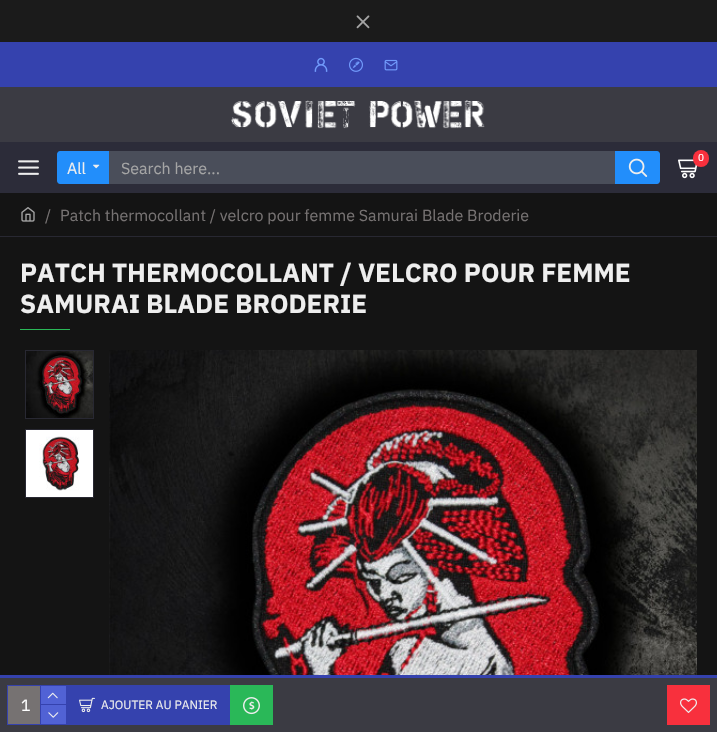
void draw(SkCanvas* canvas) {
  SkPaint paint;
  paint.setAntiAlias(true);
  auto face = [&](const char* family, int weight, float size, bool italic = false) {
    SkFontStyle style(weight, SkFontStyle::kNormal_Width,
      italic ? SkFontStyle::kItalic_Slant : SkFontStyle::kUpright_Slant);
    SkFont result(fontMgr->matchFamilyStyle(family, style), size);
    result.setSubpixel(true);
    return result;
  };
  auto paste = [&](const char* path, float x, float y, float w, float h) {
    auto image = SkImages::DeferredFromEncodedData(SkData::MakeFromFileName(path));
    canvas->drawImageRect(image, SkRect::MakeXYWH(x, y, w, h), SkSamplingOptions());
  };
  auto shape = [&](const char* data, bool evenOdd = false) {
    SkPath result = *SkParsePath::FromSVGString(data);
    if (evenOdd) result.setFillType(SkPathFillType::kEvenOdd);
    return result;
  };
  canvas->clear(0xff141414);
  paint.setColor(0xff1b1b1b);
  canvas->drawRect(SkRect::MakeXYWH(0, 0, 717, 42), paint);
  paste("img/1.png", 356, 15, 14, 14);
  paint.setColor(0xff3542ae);
  canvas->drawRect(SkRect::MakeXYWH(0, 42, 717, 45), paint);
  paste("img/2.png", 314, 57, 14, 15);
  paste("img/3.png", 349, 57, 14, 15);
  paste("img/4.png", 384, 59, 14, 12);
  paint.setColor(0xff3b3b43);
  canvas->drawRect(SkRect::MakeXYWH(0, 87, 717, 55), paint);
  paste("img/5.png", 231, 100, 254, 29);
  paint.setColor(0xff2c2c39);
  canvas->drawRect(SkRect::MakeXYWH(0, 142, 717, 51), paint);
  paste("img/6.png", 678, 159, 20, 20);
  paint.setColor(0xfff8303d);
  canvas->drawRoundRect(SkRect::MakeXYWH(693, 150, 16, 17), 8, 8, paint);
  paste("img/7.png", 18, 160, 21, 15);
  paint.setColor(0xff228efb);
  canvas->drawPath(shape("M60 151H109V184H60C58.5 184 57 182.5 57 181V154C57 152.5 58.5 151 60 151Z"), paint);
  paste("img/8.png", 93, 164, 7, 5);
  paint.setColor(0xff4a4e5a);
  canvas->drawRect(SkRect::MakeXYWH(109, 151, 506, 33), paint);
  paint.setColor(0xff228efb);
  canvas->drawPath(shape("M615 151H657C658.5 151 660 152.5 660 154V181C660 182.5 658.5 184 657 184H615Z"), paint);
  paste("img/9.png", 628, 158, 20, 19);
  paste("img/10.png", 21, 207, 14, 15);
  paint.setColor(0xff282832);
  canvas->drawRect(SkRect::MakeXYWH(0, 236, 717, 1), paint);
  paint.setColor(0xff2ab858);
  canvas->drawRect(SkRect::MakeXYWH(20, 329, 50, 1), paint);
  paint.setStroke(true);
  paint.setStrokeWidth(1);
  paint.setColor(0xff282832);
  canvas->drawRect(SkRect::MakeXYWH(25.5f, 350.5f, 68, 68), paint);
  paste("img/11.png", 26, 351, 67, 67);
  canvas->drawRect(SkRect::MakeXYWH(25.5f, 429.5f, 68, 68), paint);
  paste("img/12.png", 26, 430, 67, 67);
  paste("img/13.png", 109, 350, 588, 325);
  paint.setStroke(false);
  paint.setColor(0xff3b3b43);
  canvas->drawRect(SkRect::MakeXYWH(0, 678, 717, 54), paint);
  paint.setColor(0xff3542ae);
  canvas->drawRect(SkRect::MakeXYWH(0, 675, 717, 3), paint);
  paint.setStroke(true);
  canvas->drawRect(SkRect::MakeXYWH(7.5f, 685.5f, 59, 39), paint);
  paint.setStroke(false);
  {
    const struct { float x, y, w, h; SkColor color; } items[] = {
      {8, 686, 32, 38, 0xff767272},
      {40, 686, 1, 38, 0xff3542ae},
      {41, 686, 25, 18, 0xff5162d5},
      {41, 704, 25, 1, 0xff3542ae},
    };
    for (auto [x, y, w, h, color] : items) {
      paint.setColor(color);
      canvas->drawRect(SkRect::MakeXYWH(x, y, w, h), paint);
    }
  }
  paste("img/14.png", 47, 692, 11, 7);
  paint.setColor(0xff5162d5);
  canvas->drawRect(SkRect::MakeXYWH(41, 705, 25, 19), paint);
  paste("img/15.png", 48, 712, 11, 6);
  paint.setColor(0xff3542ae);
  canvas->drawRect(SkRect::MakeXYWH(67, 685, 163, 40), paint);
  paste("img/16.png", 79, 697, 16, 16);
  paint.setColor(0xff2ab858);
  canvas->drawRect(SkRect::MakeXYWH(230, 685, 43, 40), paint);
  paste("img/17.png", 243, 697, 17, 18);
  paint.setColor(0xfff8303d);
  canvas->drawRect(SkRect::MakeXYWH(667, 685, 43, 40), paint);
  paste("img/18.png", 680, 698, 17, 15);
  auto f0 = face("IBM Plex Sans", 400, 10);
  paint.setColor(0xffffffff);
  canvas->drawString("0", 698, 161, f0, paint);
  auto f1 = face("IBM Plex Sans", 400, 16);
  paint.setColor(0xffeeeeee);
  canvas->drawString("All", 67, 174, f1, paint);
  paint.setColor(0xffa5a5a5);
  canvas->drawString("Search here...", 121, 174, f1, paint);
  paint.setColor(0xff767272);
  canvas->drawString("/", 45, 221, f1, paint);
  canvas->drawString("Patch thermocollant / velcro pour femme Samurai Blade Broderie", 60, 221, f1, paint);
  auto f2 = face("IBM Plex Sans", 700, 26);
  paint.setColor(0xffeeeeee);
  canvas->drawString("PATCH THERMOCOLLANT / VELCRO POUR FEMME", 20, 282, f2, paint);
  canvas->drawString("SAMURAI BLADE BRODERIE", 20, 313, f2, paint);
  paint.setColor(0xffffffff);
  canvas->drawString("1", 21, 711, f1, paint);
  auto f3 = face("IBM Plex Sans", 400, 12);
  paint.setColor(0xffeeeeee);
  canvas->drawString("AJOUTER AU PANIER", 101, 709, f3, paint);
}
